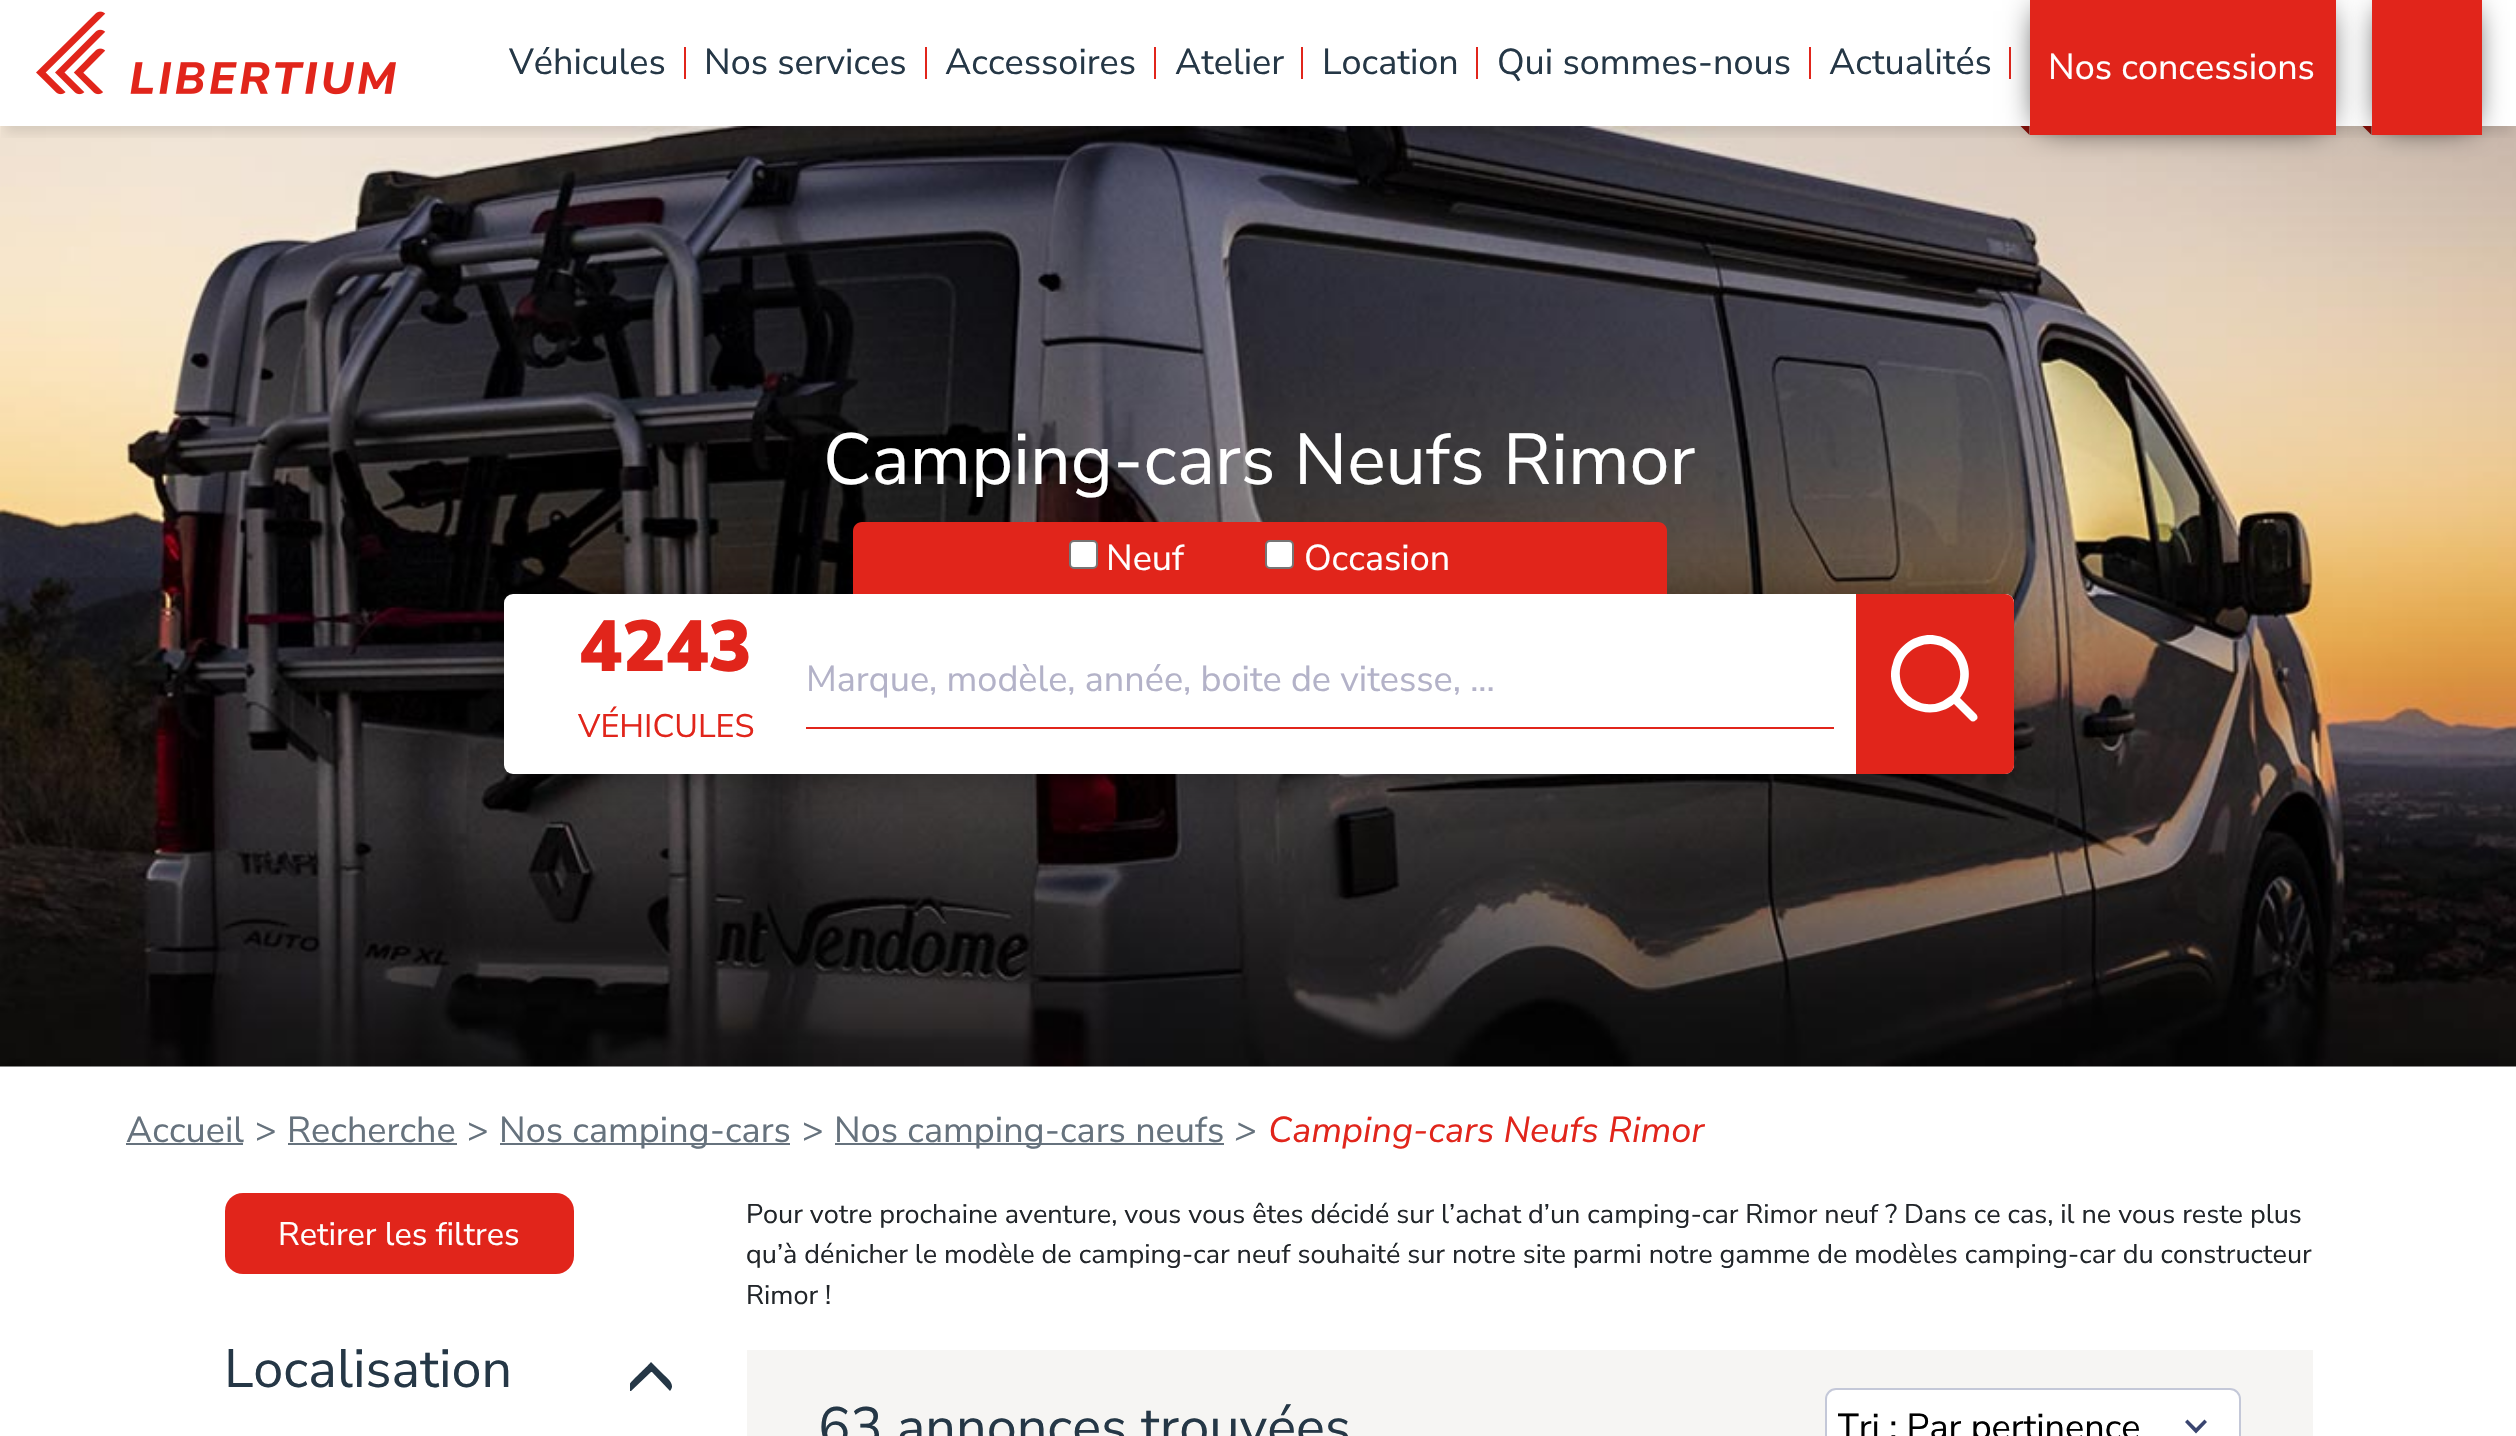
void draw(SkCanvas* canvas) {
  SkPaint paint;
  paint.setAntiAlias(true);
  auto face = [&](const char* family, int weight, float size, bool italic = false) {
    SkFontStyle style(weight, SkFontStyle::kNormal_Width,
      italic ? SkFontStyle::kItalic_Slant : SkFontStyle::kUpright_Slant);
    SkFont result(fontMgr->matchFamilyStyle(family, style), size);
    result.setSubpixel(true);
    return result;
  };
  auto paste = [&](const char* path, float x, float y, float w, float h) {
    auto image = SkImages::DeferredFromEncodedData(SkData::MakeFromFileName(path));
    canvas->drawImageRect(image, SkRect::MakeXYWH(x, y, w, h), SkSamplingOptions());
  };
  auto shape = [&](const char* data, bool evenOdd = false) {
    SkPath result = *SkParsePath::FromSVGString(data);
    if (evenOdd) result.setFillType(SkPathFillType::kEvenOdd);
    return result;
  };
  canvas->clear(0xffffffff);
  paste("img/2.png", 0, 126, 2516, 941);
  canvas->save();
  canvas->clipRect(SkRect::MakeXYWH(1, 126, 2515, 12));
  paint.setColor(0x1a000000);
  paint.setMaskFilter(SkMaskFilter::MakeBlur(kNormal_SkBlurStyle, 5.5f));
  canvas->drawRect(SkRect::MakeXYWH(5, 16, 2508, 117), paint);
  paint.setMaskFilter(nullptr);
  canvas->restore();
  paste("img/1.png", 36, 11, 360, 84);
  {
    const struct { float x, y, w, h; SkColor color; } items[] = {
      {684, 47, 2, 32, 0xffe1251b},
      {925, 47, 2, 32, 0xffe1251b},
      {1154, 47, 2, 32, 0xffe1251b},
      {1301, 47, 2, 32, 0xffe1251b},
      {1476, 47, 2, 32, 0xffe1251b},
      {1809, 47, 2, 32, 0xffe1251b},
      {2009, 47, 2, 32, 0xffe1251b},
    };
    for (auto [x, y, w, h, color] : items) {
      paint.setColor(color);
      canvas->drawRect(SkRect::MakeXYWH(x, y, w, h), paint);
    }
  }
  paint.setColor(0xff000000);
  paint.setMaskFilter(SkMaskFilter::MakeBlur(kNormal_SkBlurStyle, 16));
  canvas->drawRect(SkRect::MakeXYWH(2041, 11, 283, 113), paint);
  paint.setMaskFilter(nullptr);
  paint.setColor(0xffe1251b);
  canvas->drawRect(SkRect::MakeXYWH(2030, 0, 306, 135), paint);
  paint.setColor(0xff7a0e08);
  canvas->drawPath(shape("M2020.5 126H2029.5V135Z"), paint);
  paint.setColor(0xff000000);
  paint.setMaskFilter(SkMaskFilter::MakeBlur(kNormal_SkBlurStyle, 16));
  canvas->drawRect(SkRect::MakeXYWH(2383, 11, 88, 113), paint);
  paint.setMaskFilter(nullptr);
  paint.setColor(0xffe1251b);
  canvas->drawRect(SkRect::MakeXYWH(2372, 0, 110, 135), paint);
  paint.setColor(0xff7a0e08);
  canvas->drawPath(shape("M2362.5 126H2371.5V135Z"), paint);
  paint.setColor(0x66000000);
  paint.setMaskFilter(SkMaskFilter::MakeBlur(kNormal_SkBlurStyle, 22.5f));
  canvas->drawRoundRect(SkRect::MakeXYWH(506, 596, 1506, 176), 7, 7, paint);
  paint.setMaskFilter(nullptr);
  paint.setColor(0xffe1251b);
  canvas->drawPath(shape("M862 522H1658C1663 522 1667 526 1667 531V594H853V531C853 526 857 522 862 522Z"), paint);
  paint.setColor(0xffffffff);
  canvas->drawRoundRect(SkRect::MakeXYWH(1070, 541, 27, 27), 4, 4, paint);
  paint.setStroke(true);
  paint.setStrokeWidth(2);
  paint.setColor(0xff767676);
  canvas->drawRoundRect(SkRect::MakeXYWH(1070, 541, 27, 27), 4, 4, paint);
  paint.setStroke(false);
  paint.setColor(0xffffffff);
  canvas->drawRoundRect(SkRect::MakeXYWH(1266, 541, 27, 27), 4, 4, paint);
  paint.setStroke(true);
  paint.setColor(0xff767676);
  canvas->drawRoundRect(SkRect::MakeXYWH(1266, 541, 27, 27), 4, 4, paint);
  paint.setStroke(false);
  paint.setColor(0xffffffff);
  canvas->drawRoundRect(SkRect::MakeXYWH(504, 594, 1510, 180), 9, 9, paint);
  canvas->drawPath(shape("M813 594H2005C2010 594 2014 598 2014 603V722C2014 726 2011 729 2007 729H813C809 729 806 726 806 722V601C806 597 809 594 813 594Z"), paint);
  paint.setColor(0xffe1251b);
  canvas->drawRect(SkRect::MakeXYWH(806, 727, 1028, 2), paint);
  canvas->drawPath(shape("M1856 594H2005C2010 594 2014 598 2014 603V765C2014 770 2010 774 2005 774H1856Z"), paint);
  paint.setColor(0xffffffff);
  canvas->drawPath(shape("M1952 695L1946 699C1941 703 1934 705 1927 704C1913 703 1901 691 1900 677C1897 648 1934 632 1953 655C1957 659 1959 665 1960 671C1961 680 1958 689 1952 695ZM1976 714L1960 698C1988 664 1945 617 1908 642C1901 647 1895 654 1893 663C1889 674 1891 686 1898 696C1910 714 1937 718 1954 704L1970 720C1972 722 1974 722 1976 720C1978 719 1978 716 1976 714Z"), paint);
  {
    const struct { float x, y, w, h; SkColor color; } items[] = {
      {126, 1143, 117, 2, 0xff66727d},
      {288, 1143, 169, 2, 0xff66727d},
      {500, 1143, 290, 2, 0xff66727d},
      {835, 1143, 389, 2, 0xff66727d},
    };
    for (auto [x, y, w, h, color] : items) {
      paint.setColor(color);
      canvas->drawRect(SkRect::MakeXYWH(x, y, w, h), paint);
    }
  }
  paint.setColor(0xffe1251b);
  canvas->drawRoundRect(SkRect::MakeXYWH(225, 1193, 349, 81), 18, 18, paint);
  canvas->save();
  canvas->clipRect(SkRect::MakeXYWH(630, 1361, 45, 30));
  paint.setColor(0xff253746);
  canvas->drawPath(shape("M652 1372H651L630 1392C628 1390 628 1388 629 1385C630 1382 648 1366 651 1362L663 1374C667 1378 676 1384 670 1391Z"), paint);
  canvas->restore();
  paint.setColor(0xfff6f5f3);
  canvas->drawRect(SkRect::MakeXYWH(747, 1350, 1566, 86), paint);
  paint.setColor(0xffffffff);
  canvas->drawRoundRect(SkRect::MakeXYWH(1825, 1388, 416, 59), 11, 11, paint);
  paint.setColor(0xff3a4570);
  canvas->drawPath(shape("M2185 1422L2187.5 1419.5L2196 1428L2204.5 1419.5L2207 1422L2196 1433.5Z"), paint);
  paint.setStroke(true);
  paint.setColor(0xffc4c8d8);
  canvas->drawRoundRect(SkRect::MakeXYWH(1826, 1389, 414, 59), 10, 10, paint);
  auto f0 = face("Nunito Sans", 400, 36);
  paint.setStroke(false);
  paint.setColor(0xff253746);
  {
    const struct { const char* s; float x, y; } items[] = {
      {"Véhicules", 509, 74},
      {"Nos services", 704, 74},
      {"Accessoires", 945, 74},
      {"Atelier", 1175, 74},
      {"Location", 1322, 74},
      {"Qui sommes-nous", 1497, 74},
      {"Actualités", 1829, 74},
    };
    for (auto [s, x, y] : items) {
      canvas->drawString(s, x, y, f0, paint);
    }
  }
  paint.setColor(0xffffffff);
  canvas->drawString("Nos concessions", 2048, 79, f0, paint);
  auto f1 = face("Nunito Sans", 400, 72);
  canvas->drawString("Camping-cars Neufs Rimor", 823, 484, f1, paint);
  canvas->drawString("Neuf", 1106, 570, f0, paint);
  canvas->drawString("Occasion", 1304, 570, f0, paint);
  auto f2 = face("Nunito Sans", 900, 72);
  paint.setColor(0xffe1251b);
  canvas->drawString("4243", 579, 671, f2, paint);
  auto f3 = face("Nunito Sans", 400, 32.5f);
  canvas->drawString("VÉHICULES", 578, 737, f3, paint);
  paint.setColor(0xffb3b2c8);
  canvas->drawString("Marque, modèle, année, boite de vitesse, ...", 806, 691, f0, paint);
  paint.setColor(0xff66727d);
  {
    const struct { const char* s; float x, y; } items[] = {
      {"Accueil", 126, 1142},
      {">", 255, 1142},
      {"Recherche", 287, 1142},
      {">", 467, 1142},
      {"Nos camping-cars", 499, 1142},
      {">", 802, 1142},
      {"Nos camping-cars neufs", 834, 1142},
    };
    for (auto [s, x, y] : items) {
      canvas->drawString(s, x, y, f0, paint);
    }
  }
  auto f4 = face("Nunito Sans", 400, 36, true);
  canvas->drawString(">", 1235, 1142, f4, paint);
  paint.setColor(0xffe1251b);
  canvas->drawString("Camping-cars Neufs Rimor", 1268, 1142, f4, paint);
  paint.setColor(0xffffffff);
  canvas->drawString("Retirer les filtres", 278, 1245, f3, paint);
  auto f5 = face("Nunito Sans", 400, 54);
  paint.setColor(0xff253746);
  canvas->drawString("Localisation", 224, 1387, f5, paint);
  auto f6 = face("Nunito Sans", 400, 27);
  paint.setColor(0xff212529);
  {
    const struct { const char* s; float x, y; } items[] = {
      {"Pour votre prochaine aventure, vous vous êtes décidé sur l’achat d’un camping-car Rimor neuf ? Dans ce cas, il ne vous reste plus", 746, 1223},
      {"qu’à dénicher le modèle de camping-car neuf souhaité sur notre site parmi notre gamme de modèles camping-car du constructeur", 746, 1263},
      {"Rimor !", 746, 1304},
    };
    for (auto [s, x, y] : items) {
      canvas->drawString(s, x, y, f6, paint);
    }
  }
  paint.setColor(0xff253746);
  canvas->drawString("63 annonces trouvées", 818, 1445, f5, paint);
  canvas->save();
  canvas->clipRect(SkRect::MakeXYWH(1838, 1400, 329, 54));
  paint.setColor(0xff000000);
  canvas->drawString("Tri : Par pertinence", 1837, 1439, f0, paint);
  canvas->restore();
}
